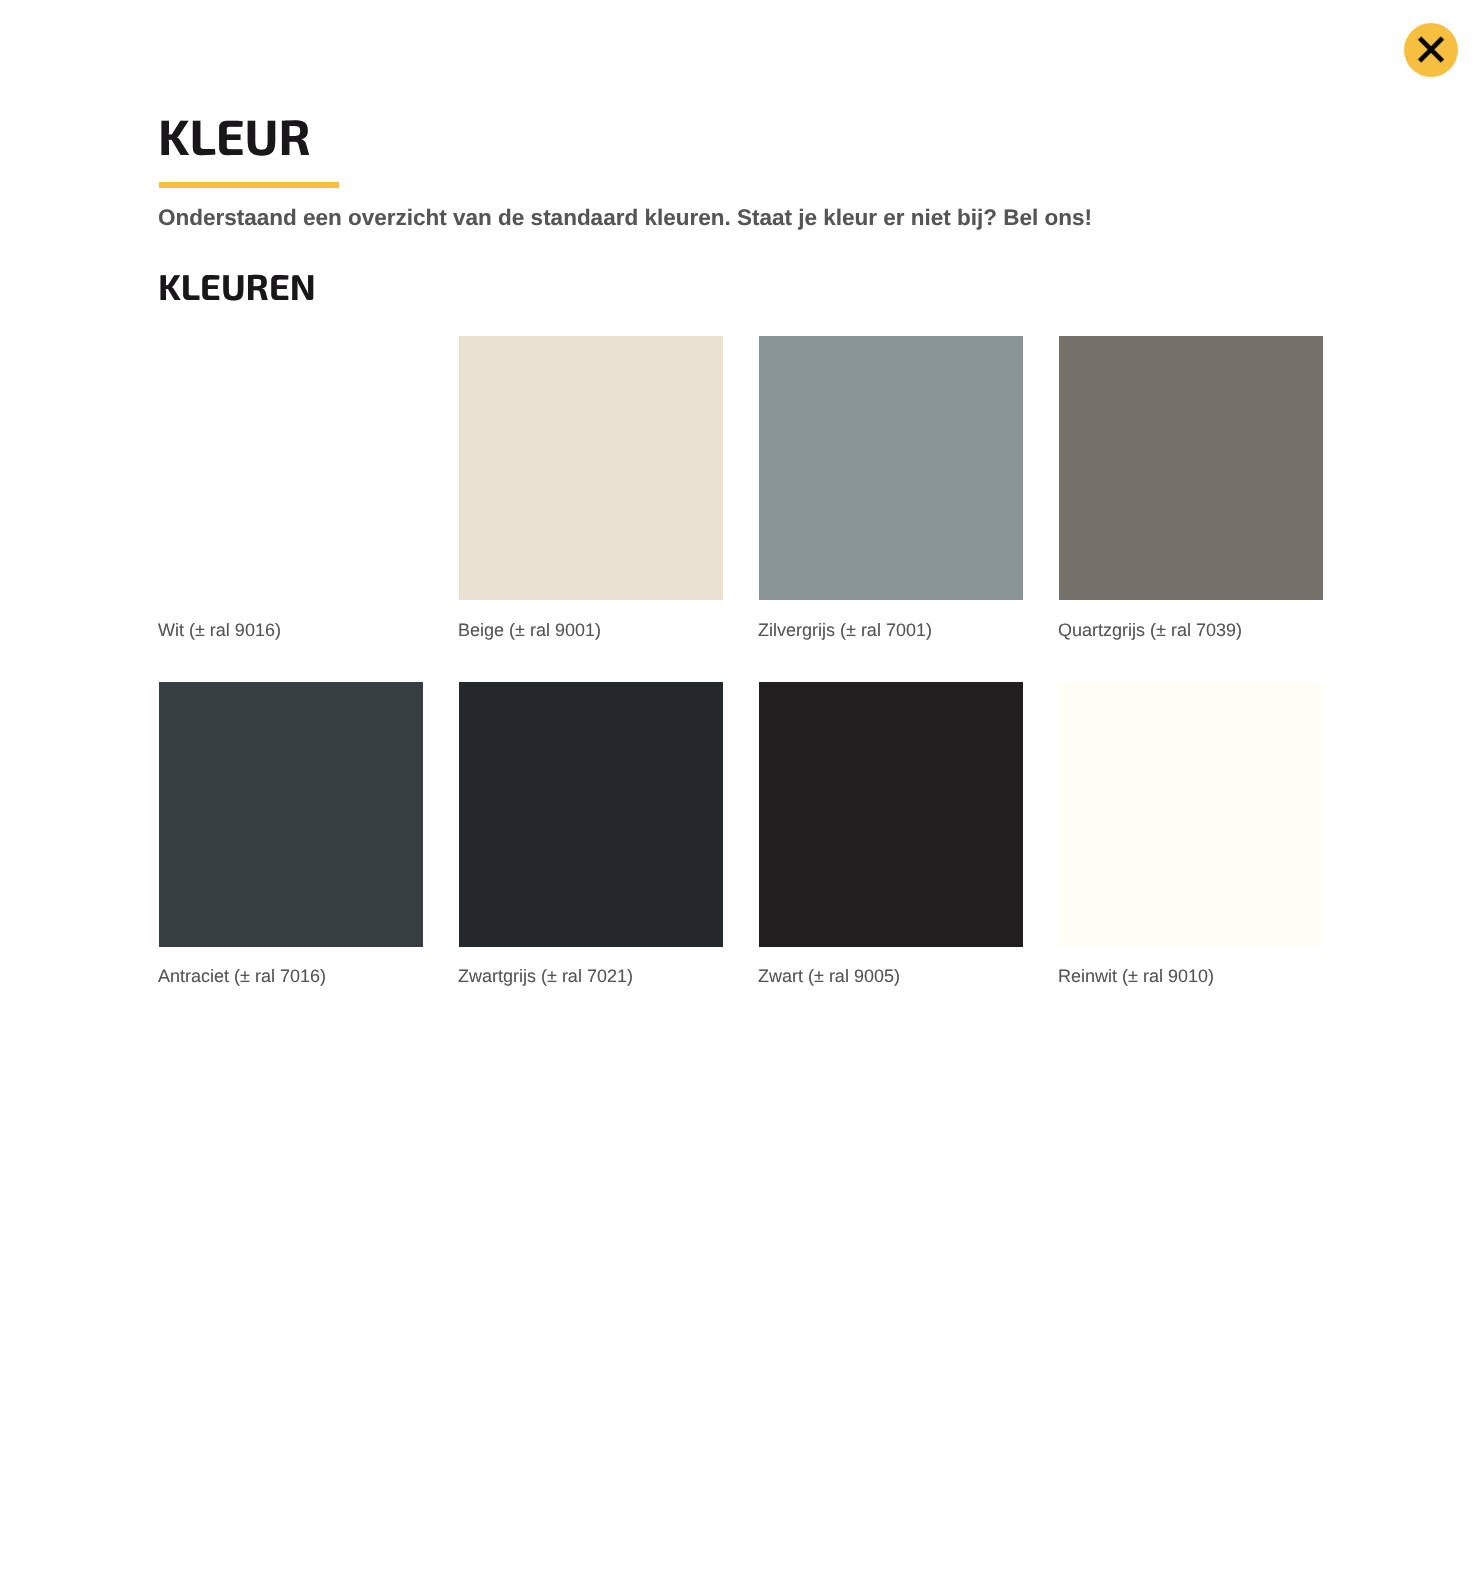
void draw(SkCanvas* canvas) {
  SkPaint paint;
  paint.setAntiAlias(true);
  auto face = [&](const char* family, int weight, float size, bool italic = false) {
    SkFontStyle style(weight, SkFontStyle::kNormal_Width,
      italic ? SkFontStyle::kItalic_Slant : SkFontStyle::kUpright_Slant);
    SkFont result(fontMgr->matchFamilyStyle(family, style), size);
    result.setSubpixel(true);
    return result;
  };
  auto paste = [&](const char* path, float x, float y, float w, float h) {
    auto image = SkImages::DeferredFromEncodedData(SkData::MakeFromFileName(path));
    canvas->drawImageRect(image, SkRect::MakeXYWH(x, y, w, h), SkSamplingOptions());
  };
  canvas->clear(0xffffffff);
  paint.setColor(0xfff6bf40);
  canvas->drawCircle(1431, 50, 27, paint);
  paste("img/1.png", 1417, 36, 28, 27);
  {
    const struct { float x, y, w, h; SkColor color; } items[] = {
      {159, 182, 180, 6, 0xfff6bf40},
      {459, 336, 264, 264, 0xffe9e0d2},
      {759, 336, 264, 264, 0xff8a9597},
      {1059, 336, 264, 264, 0xff74716a},
      {159, 682, 264, 265, 0xff363e41},
      {459, 682, 264, 265, 0xff23282b},
      {759, 682, 264, 265, 0xff201e1f},
      {1059, 682, 264, 265, 0xfffefef6},
    };
    for (auto [x, y, w, h, color] : items) {
      paint.setColor(color);
      canvas->drawRect(SkRect::MakeXYWH(x, y, w, h), paint);
    }
  }
  auto f0 = face("Exo 2", 700, 49.5f);
  paint.setColor(0xff1a171b);
  canvas->drawString("KLEUR", 158, 155, f0, paint);
  auto f1 = face("Liberation Sans", 700, 22.5f);
  paint.setColor(0xff555555);
  canvas->drawString("Onderstaand een overzicht van de standaard kleuren. Staat je kleur er niet bij? Bel ons!", 158, 225, f1, paint);
  auto f2 = face("Exo 2", 700, 36);
  paint.setColor(0xff1a171b);
  canvas->drawString("KLEUREN", 158, 300, f2, paint);
  auto f3 = face("Liberation Sans", 400, 18);
  paint.setColor(0xff555555);
  {
    const struct { const char* s; float x, y; } items[] = {
      {"Wit (± ral 9016)", 158, 636},
      {"Beige (± ral 9001)", 458, 636},
      {"Zilvergrijs (± ral 7001)", 758, 636},
      {"Quartzgrijs (± ral 7039)", 1058, 636},
      {"Antraciet (± ral 7016)", 158, 982},
      {"Zwartgrijs (± ral 7021)", 458, 982},
      {"Zwart (± ral 9005)", 758, 982},
      {"Reinwit (± ral 9010)", 1058, 982},
    };
    for (auto [s, x, y] : items) {
      canvas->drawString(s, x, y, f3, paint);
    }
  }
}
